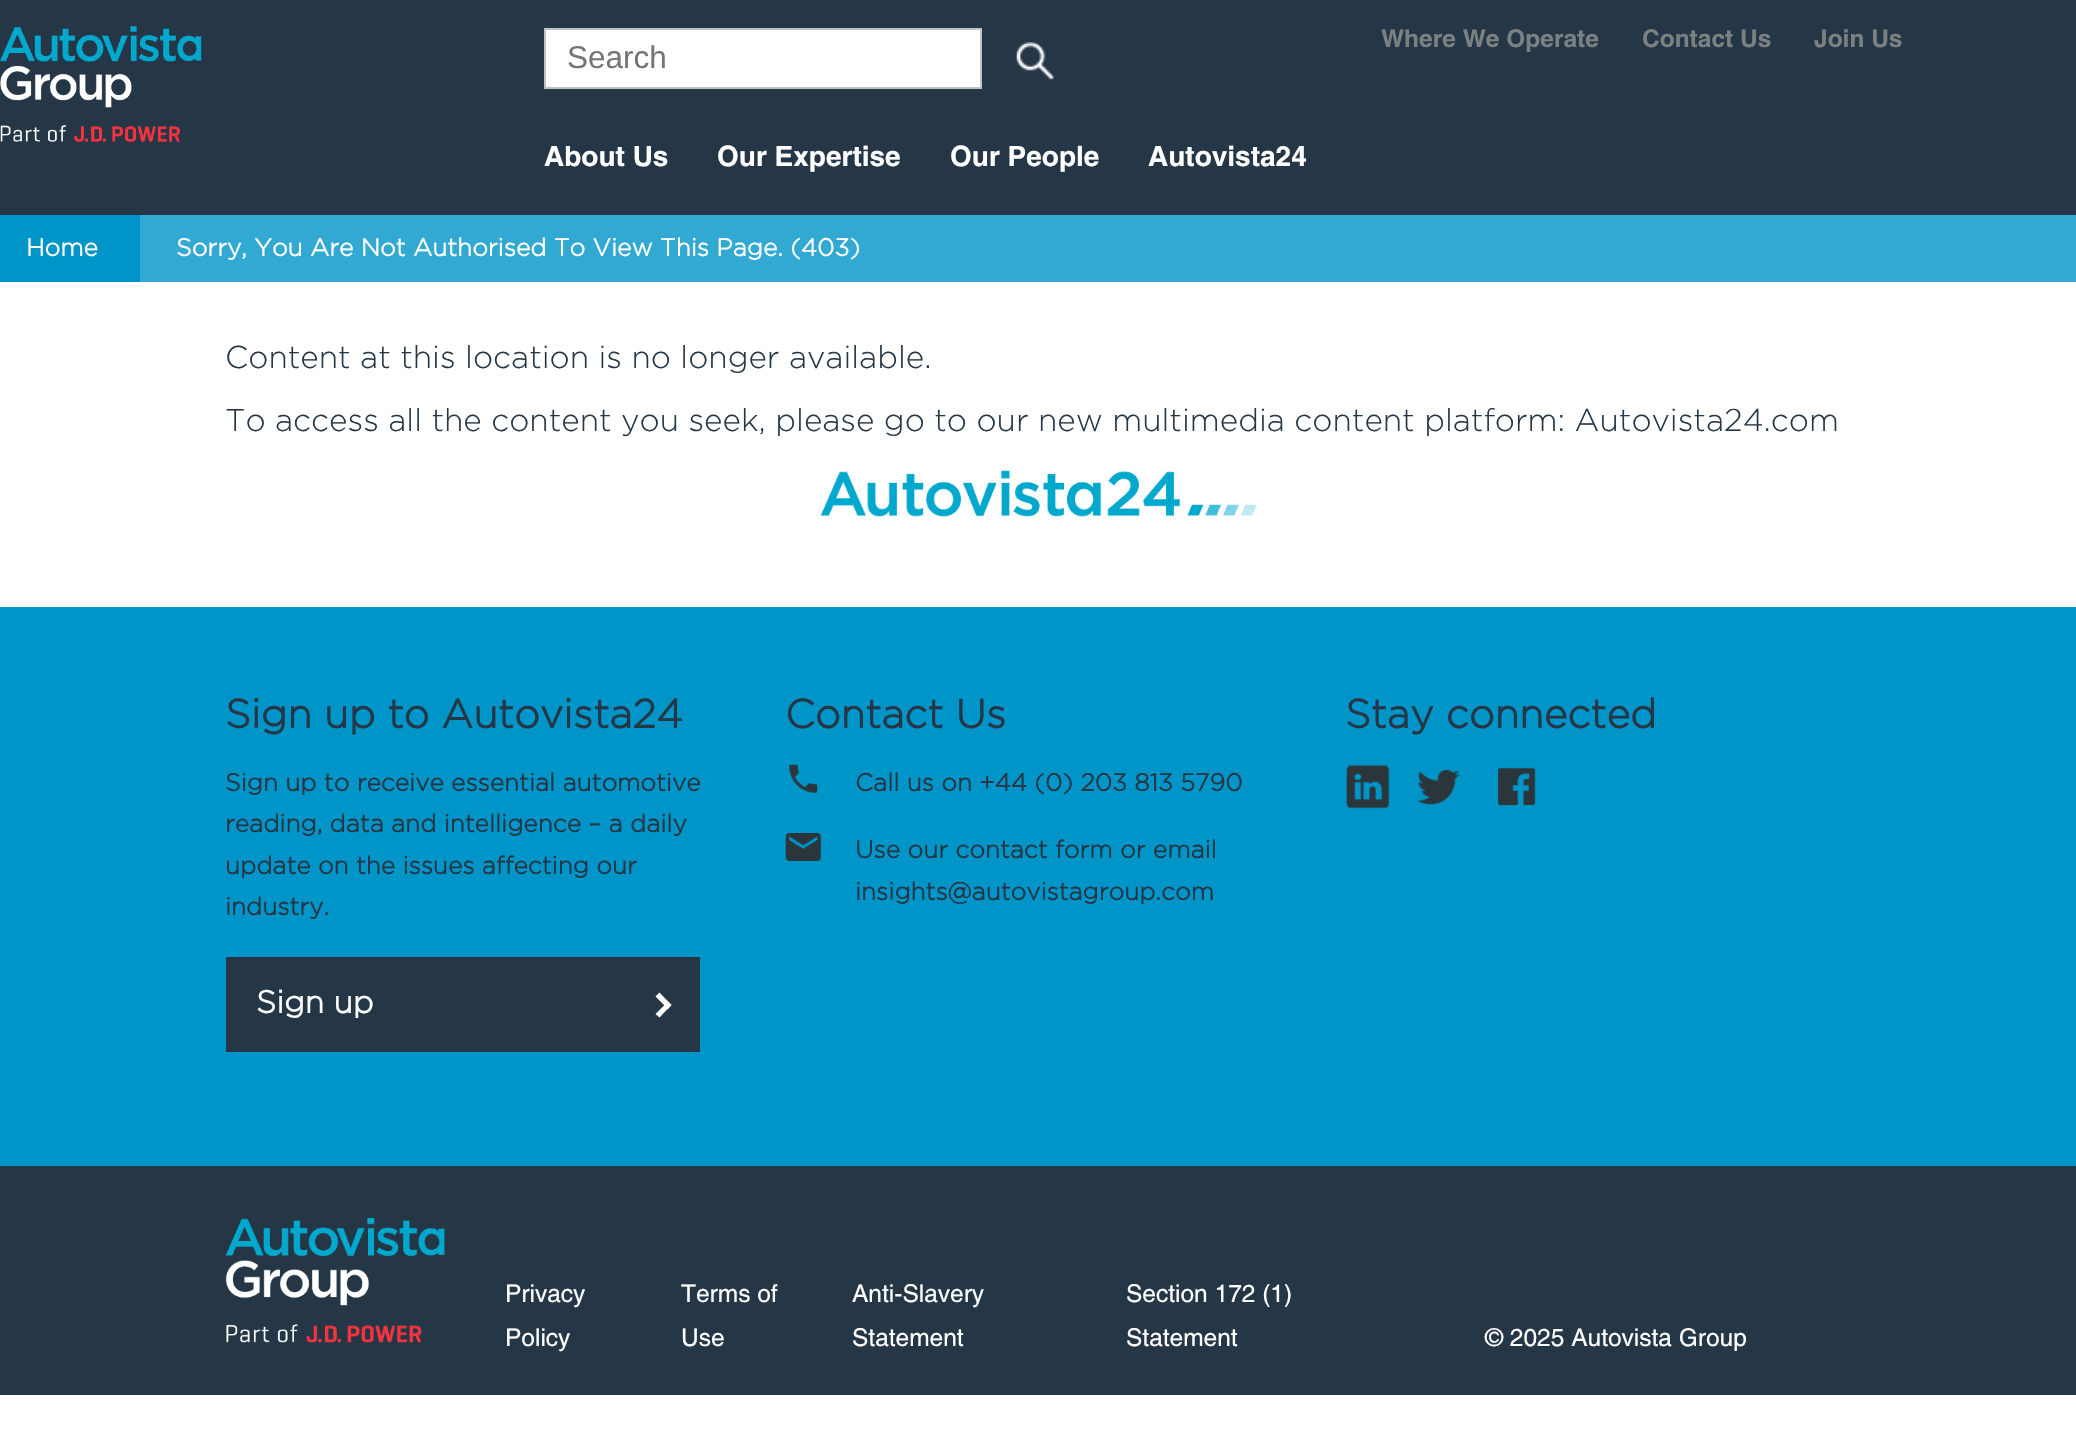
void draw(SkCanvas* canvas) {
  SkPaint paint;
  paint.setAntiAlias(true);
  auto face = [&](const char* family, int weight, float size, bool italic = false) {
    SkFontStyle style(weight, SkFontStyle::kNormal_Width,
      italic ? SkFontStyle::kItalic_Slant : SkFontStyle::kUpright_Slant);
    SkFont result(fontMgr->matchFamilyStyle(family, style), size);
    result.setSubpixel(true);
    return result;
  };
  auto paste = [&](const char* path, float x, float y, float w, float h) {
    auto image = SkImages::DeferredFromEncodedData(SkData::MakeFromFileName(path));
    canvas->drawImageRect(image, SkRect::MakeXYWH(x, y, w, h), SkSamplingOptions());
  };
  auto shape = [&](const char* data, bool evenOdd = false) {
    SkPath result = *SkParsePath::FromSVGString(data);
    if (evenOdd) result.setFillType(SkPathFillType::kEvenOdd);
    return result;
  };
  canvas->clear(0xffffffff);
  paint.setColor(0xff253746);
  canvas->drawRect(SkRect::MakeXYWH(0, 0, 2076, 215), paint);
  paste("img/1.png", 0, 26, 202, 116);
  paint.setColor(0xffffffff);
  canvas->drawRect(SkRect::MakeXYWH(545, 29, 436, 59), paint);
  paint.setStroke(true);
  paint.setStrokeWidth(2);
  paint.setColor(0xffbdc3c7);
  canvas->drawRect(SkRect::MakeXYWH(545, 29, 436, 59), paint);
  paste("img/2.png", 1016, 42, 38, 38);
  paint.setStroke(false);
  paint.setColor(0xff0095c8);
  canvas->drawRect(SkRect::MakeXYWH(0, 215, 140, 67), paint);
  paint.setColor(0xff32a9d2);
  canvas->drawRect(SkRect::MakeXYWH(140, 215, 1936, 67), paint);
  paste("img/3.png", 820, 470, 437, 47);
  paint.setColor(0xff0095c8);
  canvas->drawRect(SkRect::MakeXYWH(0, 607, 2076, 559), paint);
  paint.setColor(0xff253746);
  canvas->drawRect(SkRect::MakeXYWH(226, 957, 474, 95), paint);
  paint.setColor(0xffffffff);
  canvas->drawPath(shape("M659.5 992.5L671.5 1005L668 1009L655.5 996.5Z"), paint);
  canvas->drawPath(shape("M668 1001.5L671.5 1005L659.5 1017.5L655.5 1014Z"), paint);
  paste("img/4.png", 789, 764, 29, 29);
  paste("img/5.png", 785, 833, 36, 28);
  paste("img/6.png", 1346, 764, 44, 45);
  paste("img/7.png", 1417, 769, 43, 36);
  paste("img/8.png", 1498, 767, 38, 39);
  paint.setColor(0xff253746);
  canvas->drawRect(SkRect::MakeXYWH(0, 1166, 2076, 229), paint);
  paste("img/9.png", 225, 1218, 220, 125);
  auto f0 = face("Helvetica", 700, 24.5f);
  paint.setColor(0xff7b8183);
  {
    const struct { const char* s; float x, y; } items[] = {
      {"Where We Operate", 1381, 47},
      {"Contact Us", 1642, 47},
      {"Join Us", 1814, 47},
    };
    for (auto [s, x, y] : items) {
      canvas->drawString(s, x, y, f0, paint);
    }
  }
  auto f1 = face("Liberation Sans", 400, 31.5f);
  paint.setColor(0xff757575);
  canvas->drawString("Search", 567, 68, f1, paint);
  auto f2 = face("Helvetica", 700, 28);
  paint.setColor(0xffffffff);
  {
    const struct { const char* s; float x, y; } items[] = {
      {"About Us", 544, 166},
      {"Our Expertise", 717, 166},
      {"Our People", 950, 166},
      {"Autovista24", 1148, 166},
    };
    for (auto [s, x, y] : items) {
      canvas->drawString(s, x, y, f2, paint);
    }
  }
  auto f3 = face("Gotham", 700, 24.5f);
  canvas->drawString("Home", 26, 256, f3, paint);
  canvas->drawString("Sorry, You Are Not Authorised To View This Page. (403)", 176, 256, f3, paint);
  auto f4 = face("Gotham", 300, 31.5f);
  paint.setColor(0xff253746);
  canvas->drawString("Content at this location is no longer available.", 225, 368, f4, paint);
  canvas->drawString("To access all the content you seek, please go to our new multimedia content platform: Autovista24.com", 225, 431, f4, paint);
  auto f5 = face("Gotham", 700, 40.25f);
  canvas->drawString("Sign up to Autovista24", 225, 728, f5, paint);
  {
    const struct { const char* s; float x, y; } items[] = {
      {"Sign up to receive essential automotive", 225, 791},
      {"reading, data and intelligence – a daily", 225, 832},
      {"update on the issues affecting our", 225, 874},
      {"industry.", 225, 915},
    };
    for (auto [s, x, y] : items) {
      canvas->drawString(s, x, y, f3, paint);
    }
  }
  auto f6 = face("Gotham", 700, 31.5f);
  paint.setColor(0xffffffff);
  canvas->drawString("Sign up", 256, 1013, f6, paint);
  paint.setColor(0xff253746);
  canvas->drawString("Contact Us", 785, 728, f5, paint);
  {
    const struct { const char* s; float x, y; } items[] = {
      {"Call us on +44 (0) 203 813 5790", 855, 791},
      {"Use our contact form or email", 855, 858},
      {"insights@autovistagroup.com", 855, 900},
    };
    for (auto [s, x, y] : items) {
      canvas->drawString(s, x, y, f3, paint);
    }
  }
  canvas->drawString("Stay connected", 1345, 728, f5, paint);
  auto f7 = face("Helvetica", 400, 24.5f);
  paint.setColor(0xffffffff);
  {
    const struct { const char* s; float x, y; } items[] = {
      {"Privacy", 505, 1302},
      {"Policy", 505, 1346},
      {"Terms of", 681, 1302},
      {"Use", 681, 1346},
      {"Anti-Slavery", 852, 1302},
      {"Statement", 852, 1346},
      {"Section 172 (1)", 1126, 1302},
      {"Statement", 1126, 1346},
      {"© 2025 Autovista Group", 1485, 1346},
    };
    for (auto [s, x, y] : items) {
      canvas->drawString(s, x, y, f7, paint);
    }
  }
}
